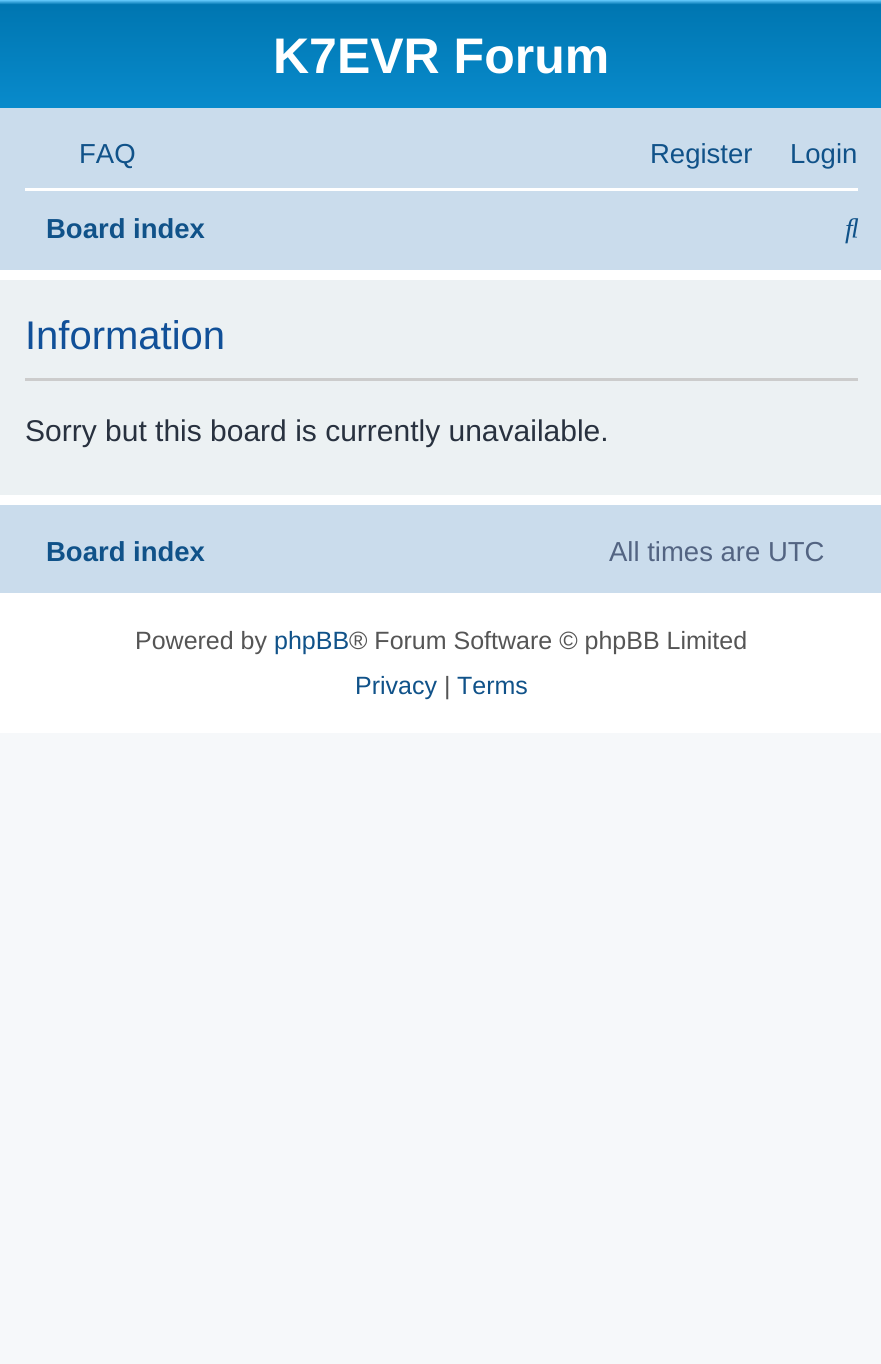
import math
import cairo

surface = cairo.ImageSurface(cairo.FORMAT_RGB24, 881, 1364)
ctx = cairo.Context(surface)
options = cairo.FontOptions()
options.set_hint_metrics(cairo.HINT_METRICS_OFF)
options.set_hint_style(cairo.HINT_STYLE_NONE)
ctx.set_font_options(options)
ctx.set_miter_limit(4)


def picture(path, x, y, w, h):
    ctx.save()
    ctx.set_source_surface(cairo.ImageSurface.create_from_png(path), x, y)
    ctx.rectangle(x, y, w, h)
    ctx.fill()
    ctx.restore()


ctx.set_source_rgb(0.961, 0.969, 0.98)
ctx.paint()
ctx.set_source_rgb(1, 1, 1)
ctx.rectangle(0, 270, 881, 463)
ctx.fill()
gradient = cairo.LinearGradient(441, 0, 441, 230)
gradient.add_color_stop_rgba(0, 0.416, 0.808, 1, 1)
gradient.add_color_stop_rgba(0.02, 0, 0.463, 0.694, 1)
gradient.add_color_stop_rgba(1, 0.071, 0.639, 0.922, 1)
ctx.set_source(gradient)
ctx.rectangle(0, 0, 881, 108)
ctx.fill()
ctx.select_font_face("Liberation Sans", cairo.FONT_SLANT_NORMAL, cairo.FONT_WEIGHT_BOLD)
ctx.set_font_size(50)
ctx.set_source_rgb(1, 1, 1)
ctx.move_to(273, 73)
ctx.show_text("K7EVR Forum")
ctx.set_source_rgb(0.792, 0.863, 0.922)
ctx.rectangle(0, 108, 881, 162)
ctx.fill()
ctx.select_font_face("Liberation Sans")
ctx.set_font_size(27.5)
ctx.set_source_rgb(0.063, 0.322, 0.537)
ctx.move_to(79, 163)
ctx.show_text("FAQ")
ctx.move_to(650, 163)
ctx.show_text("Register")
ctx.move_to(790, 163)
ctx.show_text("Login")
ctx.set_source_rgb(1, 1, 1)
ctx.rectangle(25, 188, 833, 3)
ctx.fill()
ctx.select_font_face("Liberation Sans", cairo.FONT_SLANT_NORMAL, cairo.FONT_WEIGHT_BOLD)
ctx.set_source_rgb(0.063, 0.322, 0.537)
ctx.move_to(46, 238)
ctx.show_text("Board index")
picture("img1.png", 845, 218, 14, 26)
ctx.set_source_rgb(0.925, 0.945, 0.953)
ctx.rectangle(0, 280, 881, 215)
ctx.fill()
ctx.set_source_rgb(0.8, 0.8, 0.8)
ctx.rectangle(25, 378, 833, 3)
ctx.fill()
ctx.select_font_face("Liberation Sans")
ctx.set_font_size(40)
ctx.set_source_rgb(0.067, 0.314, 0.596)
ctx.move_to(25, 349)
ctx.show_text("Information")
ctx.set_font_size(30)
ctx.set_source_rgb(0.157, 0.192, 0.247)
ctx.move_to(25, 441)
ctx.show_text("Sorry but this board is currently unavailable.")
ctx.set_source_rgb(0.792, 0.863, 0.922)
ctx.rectangle(0, 505, 881, 88)
ctx.fill()
ctx.select_font_face("Liberation Sans", cairo.FONT_SLANT_NORMAL, cairo.FONT_WEIGHT_BOLD)
ctx.set_font_size(27.5)
ctx.set_source_rgb(0.063, 0.322, 0.537)
ctx.move_to(46, 561)
ctx.show_text("Board index")
ctx.select_font_face("Liberation Sans")
ctx.set_source_rgb(0.325, 0.392, 0.51)
ctx.move_to(609, 561)
ctx.show_text("All times are UTC")
ctx.set_font_size(25)
ctx.set_source_rgb(0.333, 0.333, 0.333)
ctx.move_to(135, 649)
ctx.show_text("Powered by")
ctx.set_source_rgb(0.063, 0.322, 0.537)
ctx.move_to(274, 649)
ctx.show_text("phpBB")
ctx.set_source_rgb(0.333, 0.333, 0.333)
ctx.move_to(349, 649)
ctx.show_text("® Forum Software © phpBB Limited")
ctx.set_source_rgb(0.063, 0.322, 0.537)
ctx.move_to(355, 694)
ctx.show_text("Privacy")
ctx.set_source_rgb(0.333, 0.333, 0.333)
ctx.move_to(444, 694)
ctx.show_text("|")
ctx.set_source_rgb(0.063, 0.322, 0.537)
ctx.move_to(457, 694)
ctx.show_text("Terms")
surface.write_to_png("page.png")
